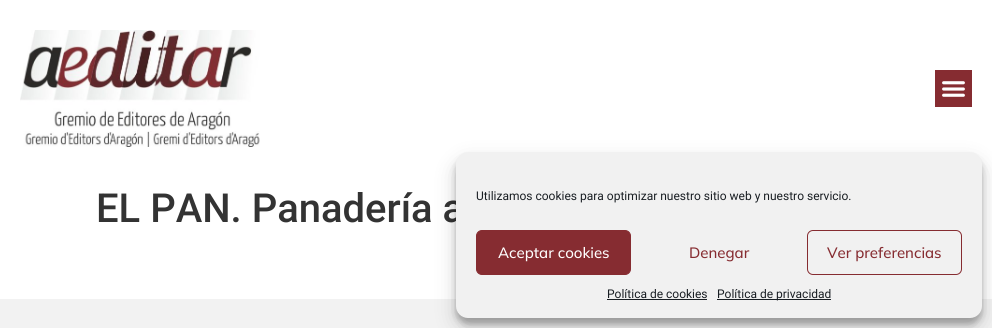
import math
import cairo

surface = cairo.ImageSurface(cairo.FORMAT_RGB24, 992, 328)
ctx = cairo.Context(surface)
options = cairo.FontOptions()
options.set_hint_metrics(cairo.HINT_METRICS_OFF)
options.set_hint_style(cairo.HINT_STYLE_NONE)
ctx.set_font_options(options)
ctx.set_miter_limit(4)


def round_rect(x, y, w, h, r):
    ctx.new_sub_path()
    for i, (u, v) in enumerate([(x + w - r, y + h - r), (x + r, y + h - r), (x + r, y + r), (x + w - r, y + r)]):
        ctx.arc(u, v, r, i * math.pi / 2, (i + 1) * math.pi / 2)
    ctx.close_path()


def shadow(x, y, w, h, r, blur, alpha):
    ctx.push_group_with_content(cairo.CONTENT_ALPHA)
    ctx.set_operator(cairo.OPERATOR_SOURCE)
    for i in range(15, -16, -2):
        e = blur * i / 6
        if min(w, h) + 2 * e > 0:
            ctx.set_source_rgba(0, 0, 0, alpha * math.erfc((i - 1) / 8.5) / 2)
            round_rect(x - e, y - e, w + 2 * e, h + 2 * e, max(0, min(r + e + blur * .6, min(w, h) / 2 + e)))
            ctx.fill()
    ctx.mask(ctx.pop_group())


def picture(path, x, y, w, h):
    ctx.save()
    ctx.set_source_surface(cairo.ImageSurface.create_from_png(path), x, y)
    ctx.rectangle(x, y, w, h)
    ctx.fill()
    ctx.restore()


ctx.set_source_rgb(1, 1, 1)
ctx.paint()
picture("img1.png", 20, 30, 240, 117)
ctx.set_source_rgb(0.525, 0.173, 0.192)
ctx.rectangle(935, 70, 37, 37)
ctx.fill()
picture("img2.png", 942, 81, 23, 16)
ctx.select_font_face("Roboto Medium")
ctx.set_font_size(40)
ctx.set_source_rgb(0.2, 0.2, 0.2)
ctx.move_to(96, 222)
ctx.show_text("EL PAN. Panadería a")
ctx.set_source_rgb(0.949, 0.949, 0.949)
ctx.rectangle(0, 299, 992, 29)
ctx.fill()
ctx.set_source_rgb(0, 0, 0)
shadow(456, 158, 526, 166, 12, 3, 0.23)
shadow(456, 162, 526, 166, 12, 10, 0.19)
ctx.set_source_rgb(0.945, 0.945, 0.945)
round_rect(456, 152, 526, 166, 12)
ctx.fill()
ctx.select_font_face("Roboto")
ctx.set_font_size(12)
ctx.set_source_rgb(0.098, 0.118, 0.137)
ctx.move_to(476, 200)
ctx.show_text("Utilizamos cookies para optimizar nuestro sitio web y nuestro servicio.")
ctx.set_source_rgb(0.525, 0.173, 0.192)
round_rect(476.5, 230.5, 154, 44, 5.5)
ctx.fill_preserve()
ctx.set_line_width(1)
ctx.stroke()
ctx.select_font_face("Mulish Medium")
ctx.set_font_size(15)
ctx.set_source_rgb(1, 1, 1)
ctx.move_to(498, 258)
ctx.show_text("Aceptar cookies")
ctx.set_source_rgb(0.525, 0.173, 0.192)
ctx.move_to(689, 258)
ctx.show_text("Denegar")
round_rect(807.5, 230.5, 154, 44, 5.5)
ctx.stroke()
ctx.move_to(827, 258)
ctx.show_text("Ver preferencias")
ctx.select_font_face("Roboto")
ctx.set_font_size(12)
ctx.set_source_rgb(0.098, 0.118, 0.137)
ctx.move_to(607, 298)
ctx.show_text("Política de cookies")
ctx.rectangle(607, 299, 100, 1)
ctx.fill()
ctx.rectangle(717, 299, 114, 1)
ctx.fill()
ctx.move_to(717, 298)
ctx.show_text("Política de privacidad")
surface.write_to_png("page.png")
